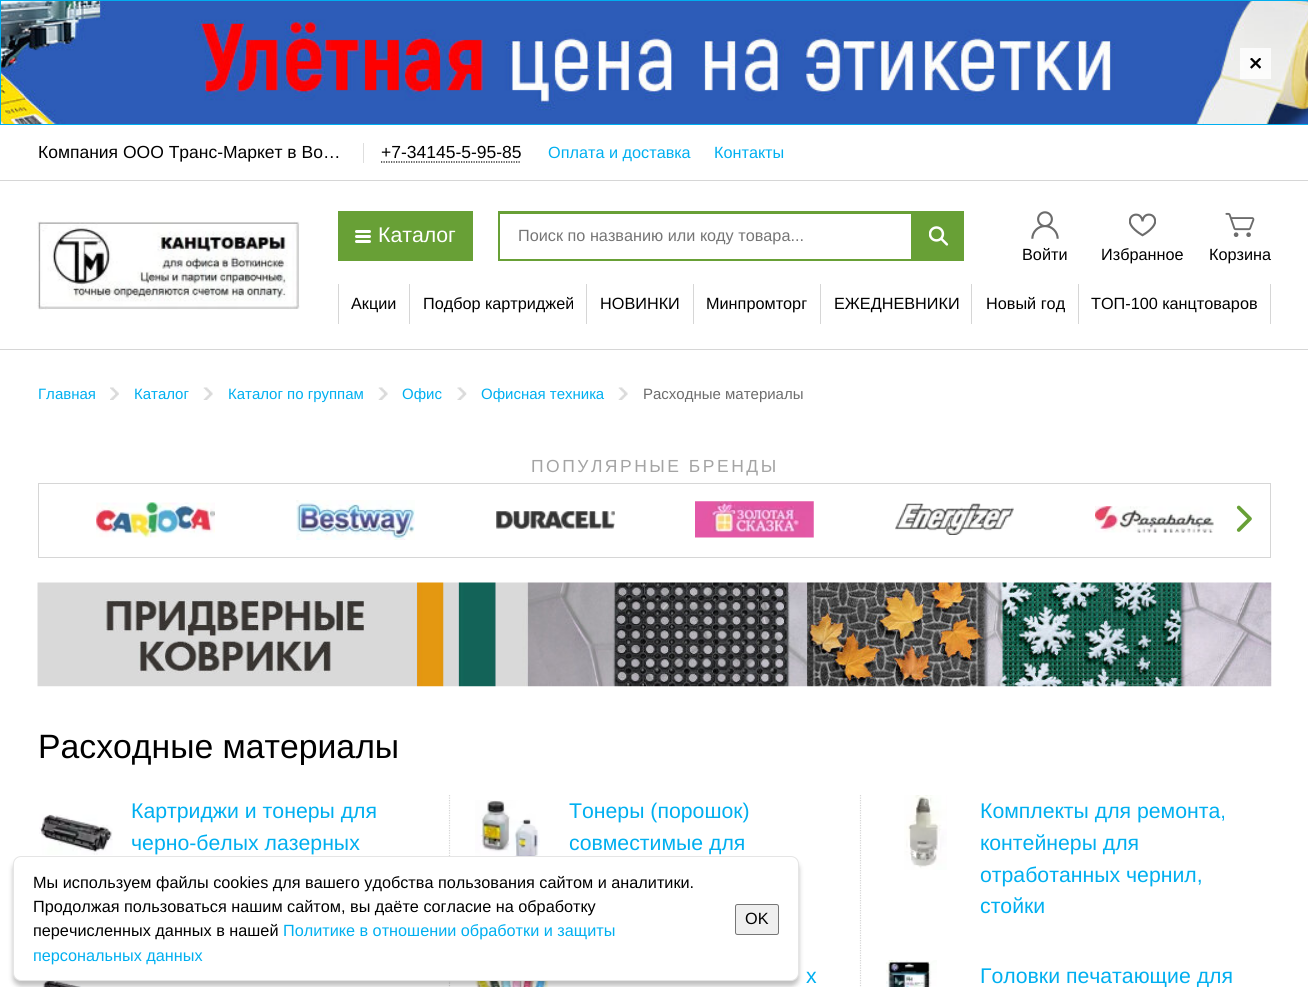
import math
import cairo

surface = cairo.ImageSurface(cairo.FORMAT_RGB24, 1308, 987)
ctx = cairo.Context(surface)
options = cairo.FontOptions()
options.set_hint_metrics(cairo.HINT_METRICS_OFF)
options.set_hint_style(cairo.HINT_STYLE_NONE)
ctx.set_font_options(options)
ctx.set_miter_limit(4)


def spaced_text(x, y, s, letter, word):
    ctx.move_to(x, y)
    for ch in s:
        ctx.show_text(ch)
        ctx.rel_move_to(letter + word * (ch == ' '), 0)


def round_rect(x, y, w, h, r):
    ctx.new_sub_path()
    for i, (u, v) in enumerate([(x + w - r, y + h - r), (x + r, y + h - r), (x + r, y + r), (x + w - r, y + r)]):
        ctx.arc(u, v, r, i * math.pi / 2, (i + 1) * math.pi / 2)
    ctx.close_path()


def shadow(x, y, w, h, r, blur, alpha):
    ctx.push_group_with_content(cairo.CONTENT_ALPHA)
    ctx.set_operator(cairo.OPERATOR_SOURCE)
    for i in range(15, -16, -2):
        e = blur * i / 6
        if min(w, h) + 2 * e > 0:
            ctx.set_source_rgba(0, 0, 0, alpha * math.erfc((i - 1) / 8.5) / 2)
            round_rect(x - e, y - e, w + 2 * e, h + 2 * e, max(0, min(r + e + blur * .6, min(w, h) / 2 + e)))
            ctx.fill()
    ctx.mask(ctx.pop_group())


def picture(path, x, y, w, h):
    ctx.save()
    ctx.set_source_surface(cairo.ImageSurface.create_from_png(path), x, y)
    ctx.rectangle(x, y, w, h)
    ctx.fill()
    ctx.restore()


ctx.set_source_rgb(1, 1, 1)
ctx.paint()
picture("img1.png", 1, 1, 1307, 123)
ctx.rectangle(0.5, 0.5, 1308, 124)
ctx.set_source_rgb(0, 0.686, 0.941)
ctx.set_line_width(1)
ctx.stroke()
ctx.set_source_rgba(1, 1, 1, 0.8)
ctx.rectangle(1240, 48, 31, 31)
ctx.fill()
picture("img2.png", 1250, 58, 11, 11)
ctx.set_source_rgb(0.839, 0.839, 0.839)
ctx.rectangle(0, 180, 1308, 1)
ctx.fill()
ctx.select_font_face("Liberation Sans")
ctx.set_font_size(17.5)
ctx.set_source_rgb(0, 0, 0)
ctx.move_to(38, 158)
ctx.show_text("Компания ООО Транс-Маркет в Во…")
ctx.set_source_rgb(0.871, 0.871, 0.871)
ctx.rectangle(363, 143, 1, 20)
ctx.fill()
ctx.set_source_rgb(0, 0, 0)
ctx.move_to(381, 158)
ctx.show_text("+7-34145-5-95-85")
ctx.new_path()
ctx.move_to(381, 162)
ctx.line_to(521, 162)
ctx.set_line_width(1.2)
ctx.set_dash([1.25, 1.25])
ctx.stroke()
ctx.set_font_size(16.25)
ctx.set_source_rgb(0, 0.686, 0.941)
ctx.move_to(548, 158)
ctx.show_text("Оплата и доставка")
ctx.move_to(714, 158)
ctx.show_text("Контакты")
ctx.set_source_rgb(0.839, 0.839, 0.839)
ctx.rectangle(0, 349, 1308, 1)
ctx.fill()
picture("img3.png", 37, 221, 263, 89)
ctx.set_source_rgb(0.408, 0.627, 0.212)
ctx.rectangle(338, 211, 135, 50)
ctx.fill()
ctx.set_source_rgb(1, 1, 1)
round_rect(355, 235, 16, 3, 1.5)
ctx.fill()
round_rect(355, 230, 16, 3, 1.5)
ctx.fill()
round_rect(355, 240, 16, 3, 1.5)
ctx.fill()
ctx.set_font_size(21.25)
ctx.move_to(378, 242)
ctx.show_text("Каталог")
ctx.rectangle(499.5, 212.5, 463, 47)
ctx.set_source_rgb(0.408, 0.627, 0.212)
ctx.set_line_width(3)
ctx.set_dash([])
ctx.stroke()
ctx.set_source_rgb(1, 1, 1)
ctx.rectangle(500, 214, 411, 45)
ctx.fill()
ctx.set_font_size(16.25)
ctx.set_source_rgb(0.459, 0.459, 0.459)
ctx.move_to(518, 241)
ctx.show_text("Поиск по названию или коду товара...")
ctx.set_source_rgb(0.408, 0.627, 0.212)
ctx.rectangle(911, 214, 50, 44)
ctx.fill()
picture("img4.png", 929, 226, 20, 20)
picture("img5.png", 1031, 211, 28, 28)
ctx.set_source_rgb(0, 0, 0)
ctx.move_to(1022, 260)
ctx.show_text("Войти")
picture("img6.png", 1129, 213, 27, 24)
ctx.move_to(1101, 260)
ctx.show_text("Избранное")
picture("img7.png", 1225, 212, 30, 25)
ctx.move_to(1209, 260)
ctx.show_text("Корзина")
ctx.set_source_rgb(0.839, 0.839, 0.839)
ctx.rectangle(409, 284, 1, 40)
ctx.fill()
ctx.rectangle(338, 284, 1, 40)
ctx.fill()
ctx.set_source_rgb(0, 0, 0)
ctx.move_to(351, 309)
ctx.show_text("Акции")
ctx.set_source_rgb(0.839, 0.839, 0.839)
ctx.rectangle(586, 284, 1, 40)
ctx.fill()
ctx.set_source_rgb(0, 0, 0)
ctx.move_to(423, 309)
ctx.show_text("Подбор картриджей")
ctx.set_source_rgb(0.839, 0.839, 0.839)
ctx.rectangle(693, 284, 1, 40)
ctx.fill()
ctx.set_source_rgb(0, 0, 0)
ctx.move_to(600, 309)
ctx.show_text("НОВИНКИ")
ctx.set_source_rgb(0.839, 0.839, 0.839)
ctx.rectangle(820, 284, 1, 40)
ctx.fill()
ctx.set_source_rgb(0, 0, 0)
ctx.move_to(706, 309)
ctx.show_text("Минпромторг")
ctx.set_source_rgb(0.839, 0.839, 0.839)
ctx.rectangle(971, 284, 1, 40)
ctx.fill()
ctx.set_source_rgb(0, 0, 0)
ctx.move_to(834, 309)
ctx.show_text("ЕЖЕДНЕВНИКИ")
ctx.set_source_rgb(0.839, 0.839, 0.839)
ctx.rectangle(1078, 284, 1, 40)
ctx.fill()
ctx.set_source_rgb(0, 0, 0)
ctx.move_to(986, 309)
ctx.show_text("Новый год")
ctx.set_source_rgb(0.839, 0.839, 0.839)
ctx.rectangle(1270, 284, 1, 40)
ctx.fill()
ctx.set_source_rgb(0, 0, 0)
ctx.move_to(1091, 309)
ctx.show_text("ТОП-100 канцтоваров")
ctx.set_font_size(15)
ctx.set_source_rgb(0, 0.686, 0.941)
ctx.move_to(38, 399)
ctx.show_text("Главная")
picture("img8.png", 110, 387, 9, 13)
ctx.move_to(134, 399)
ctx.show_text("Каталог")
picture("img9.png", 203, 387, 10, 13)
ctx.move_to(228, 399)
ctx.show_text("Каталог по группам")
picture("img10.png", 378, 387, 10, 13)
ctx.move_to(402, 399)
ctx.show_text("Офис")
picture("img11.png", 457, 387, 10, 13)
ctx.move_to(481, 399)
ctx.show_text("Офисная техника")
picture("img9.png", 618, 387, 10, 13)
ctx.set_source_rgb(0.424, 0.424, 0.424)
ctx.move_to(643, 399)
ctx.show_text("Расходные материалы")
ctx.set_font_size(17.5)
ctx.set_source_rgb(0.643, 0.643, 0.643)
spaced_text(531, 472, "ПОПУЛЯРНЫЕ БРЕНДЫ", 2.5, 0)
ctx.rectangle(38.5, 483.5, 1232, 74)
ctx.set_source_rgb(0.839, 0.839, 0.839)
ctx.set_line_width(1)
ctx.stroke()
picture("img12.png", 96, 502, 119, 36)
picture("img13.png", 296, 500, 119, 40)
picture("img14.png", 496, 511, 119, 18)
picture("img15.png", 695, 501, 119, 37)
picture("img16.png", 895, 503, 119, 32)
picture("img17.png", 1095, 506, 119, 27)
picture("img18.png", 1236, 505, 16, 27)
picture("img19.png", 37, 582, 1235, 105)
ctx.set_font_size(33.75)
ctx.set_source_rgb(0, 0, 0)
ctx.move_to(38, 758)
ctx.show_text("Расходные материалы")
picture("img20.png", 39, 814, 74, 41)
ctx.set_font_size(21.25)
ctx.set_source_rgb(0, 0.686, 0.941)
ctx.move_to(131, 818)
ctx.show_text("Картриджи и тонеры для")
ctx.move_to(131, 850)
ctx.show_text("черно-белых лазерных")
picture("img21.png", 42, 981, 39, 6)
ctx.new_path()
ctx.move_to(449.5, 795)
ctx.line_to(449.5, 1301)
ctx.set_source_rgb(0.839, 0.839, 0.839)
ctx.set_line_width(1.2)
ctx.set_dash([1.25, 1.25])
ctx.stroke()
picture("img22.png", 475, 800, 65, 56)
ctx.set_source_rgb(0, 0.686, 0.941)
ctx.move_to(569, 818)
ctx.show_text("Тонеры (порошок)")
ctx.move_to(569, 850)
ctx.show_text("совместимые для")
ctx.move_to(806, 983)
ctx.show_text("х")
picture("img23.png", 475, 981, 75, 6)
ctx.new_path()
ctx.move_to(860.5, 795)
ctx.line_to(860.5, 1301)
ctx.set_source_rgb(0.839, 0.839, 0.839)
ctx.stroke()
picture("img24.png", 904, 795, 43, 75)
ctx.set_source_rgb(0, 0.686, 0.941)
ctx.move_to(980, 818)
ctx.show_text("Комплекты для ремонта,")
ctx.move_to(980, 850)
ctx.show_text("контейнеры для")
ctx.move_to(980, 882)
ctx.show_text("отработанных чернил,")
ctx.move_to(980, 913)
ctx.show_text("стойки")
picture("img25.png", 886, 960, 51, 27)
ctx.move_to(980, 983)
ctx.show_text("Головки печатающие для")
ctx.set_source_rgb(0, 0, 0)
shadow(13, 861, 786, 125, 8, 2.5, 0.25)
ctx.set_source_rgb(1, 1, 1)
round_rect(13.5, 856.5, 785, 124, 7.5)
ctx.fill_preserve()
ctx.set_source_rgb(0.898, 0.898, 0.898)
ctx.set_line_width(1)
ctx.set_dash([])
ctx.stroke()
ctx.set_font_size(16.25)
ctx.set_source_rgb(0, 0, 0)
ctx.move_to(33, 888)
ctx.show_text("Мы используем файлы cookies для вашего удобства пользования сайтом и аналитики.")
ctx.move_to(33, 912)
ctx.show_text("Продолжая пользоваться нашим сайтом, вы даёте согласие на обработку")
ctx.move_to(33, 936)
ctx.show_text("перечисленных данных в нашей")
ctx.set_source_rgb(0, 0.686, 0.941)
ctx.move_to(283, 936)
ctx.show_text("Политике в отношении обработки и защиты")
ctx.move_to(33, 961)
ctx.show_text("персональных данных")
ctx.set_source_rgb(0.937, 0.937, 0.937)
round_rect(735.5, 904.5, 43, 30, 2)
ctx.fill_preserve()
ctx.set_source_rgb(0.463, 0.463, 0.463)
ctx.stroke()
ctx.set_source_rgb(0, 0, 0)
ctx.move_to(745, 924)
ctx.show_text("OK")
surface.write_to_png("page.png")
